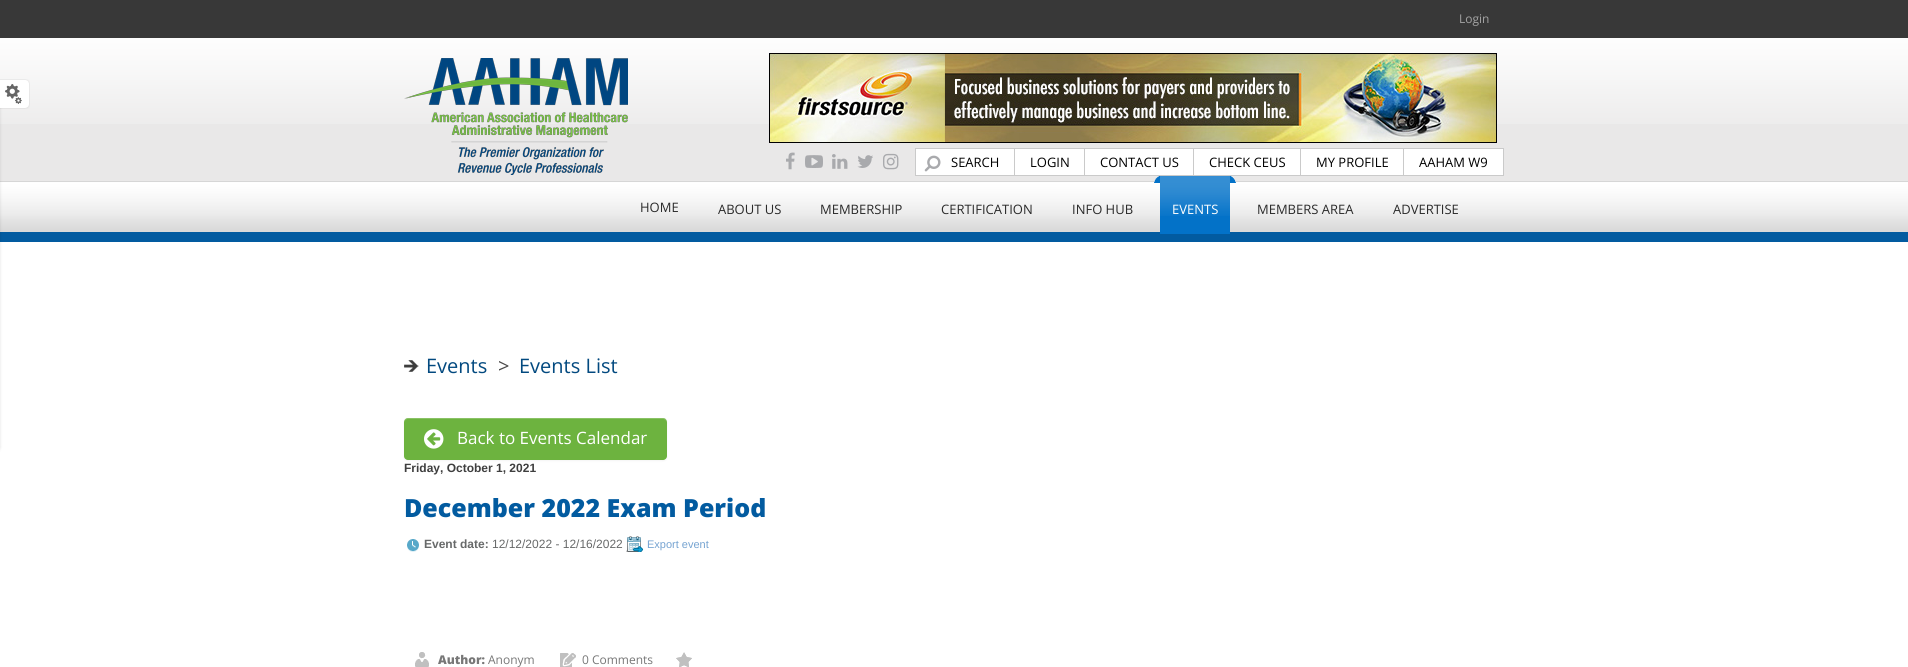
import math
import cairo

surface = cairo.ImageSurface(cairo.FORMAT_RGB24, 1908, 667)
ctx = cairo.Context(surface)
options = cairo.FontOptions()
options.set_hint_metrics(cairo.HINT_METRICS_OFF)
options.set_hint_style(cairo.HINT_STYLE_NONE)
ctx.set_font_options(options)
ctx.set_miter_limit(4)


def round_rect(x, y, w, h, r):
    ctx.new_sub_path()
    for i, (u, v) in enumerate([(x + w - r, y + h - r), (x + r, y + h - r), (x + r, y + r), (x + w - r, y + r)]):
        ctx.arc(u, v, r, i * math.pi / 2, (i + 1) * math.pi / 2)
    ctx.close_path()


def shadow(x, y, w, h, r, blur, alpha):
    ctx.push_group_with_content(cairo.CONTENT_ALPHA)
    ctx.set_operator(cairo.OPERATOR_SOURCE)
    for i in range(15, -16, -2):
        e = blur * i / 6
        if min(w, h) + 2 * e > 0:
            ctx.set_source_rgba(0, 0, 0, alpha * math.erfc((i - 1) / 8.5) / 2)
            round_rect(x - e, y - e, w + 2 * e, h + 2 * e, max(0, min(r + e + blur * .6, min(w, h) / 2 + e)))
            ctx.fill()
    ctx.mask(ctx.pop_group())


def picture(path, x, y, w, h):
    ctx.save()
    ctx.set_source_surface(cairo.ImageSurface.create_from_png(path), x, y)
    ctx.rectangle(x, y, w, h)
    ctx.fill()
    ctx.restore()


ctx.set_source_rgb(0.22, 0.22, 0.22)
ctx.paint()
ctx.select_font_face("Open Sans")
ctx.set_font_size(12)
ctx.set_source_rgb(0.639, 0.639, 0.639)
ctx.move_to(1459, 23)
ctx.show_text("Login")
ctx.set_source_rgb(1, 1, 1)
ctx.rectangle(0, 181, 1908, 486)
ctx.fill()
ctx.set_source_rgb(0.914, 0.91, 0.91)
ctx.rectangle(0, 124, 1908, 57)
ctx.fill()
picture("img3.png", 0, 38, 1908, 86)
picture("img12.png", 0, 181, 1908, 51)
ctx.set_source_rgb(0.008, 0.357, 0.627)
ctx.rectangle(0, 232, 1908, 10)
ctx.fill()
ctx.set_source_rgb(0, 0, 0)
shadow(-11, 80, 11, 372, 6, 1.5, 0.12)
picture("img1.png", 0, 79, 30, 30)
picture("img2.png", 5, 84, 17, 20)
picture("img4.png", 404, 58, 224, 117)
picture("img5.png", 769, 53, 728, 90)
picture("img6.png", 786, 152, 9, 18)
picture("img7.png", 805, 155, 18, 13)
picture("img8.png", 832, 154, 16, 15)
picture("img9.png", 857, 155, 16, 13)
picture("img10.png", 883, 153, 16, 17)
ctx.set_source_rgb(1, 1, 1)
ctx.rectangle(1015, 149, 69, 26)
ctx.fill()
ctx.rectangle(1014.5, 148.5, 71, 27)
ctx.set_source_rgb(0.792, 0.792, 0.792)
ctx.set_line_width(1)
ctx.stroke()
ctx.set_source_rgb(1, 1, 1)
ctx.rectangle(915.5, 148.5, 99, 27)
ctx.fill_preserve()
ctx.set_source_rgb(0.792, 0.792, 0.792)
ctx.stroke()
picture("img11.png", 924, 155, 17, 17)
ctx.set_font_size(13)
ctx.set_source_rgb(0, 0, 0)
ctx.move_to(951, 167)
ctx.show_text("SEARCH")
ctx.move_to(1030, 167)
ctx.show_text("LOGIN")
ctx.set_source_rgb(1, 1, 1)
ctx.rectangle(1085, 149, 108, 26)
ctx.fill()
ctx.rectangle(1084.5, 148.5, 110, 27)
ctx.set_source_rgb(0.792, 0.792, 0.792)
ctx.stroke()
ctx.set_source_rgb(0, 0, 0)
ctx.move_to(1100, 167)
ctx.show_text("CONTACT US")
ctx.set_source_rgb(1, 1, 1)
ctx.rectangle(1194, 149, 106, 26)
ctx.fill()
ctx.rectangle(1193.5, 148.5, 108, 27)
ctx.set_source_rgb(0.792, 0.792, 0.792)
ctx.stroke()
ctx.set_source_rgb(0, 0, 0)
ctx.move_to(1209, 167)
ctx.show_text("CHECK CEUS")
ctx.set_source_rgb(1, 1, 1)
ctx.rectangle(1301, 149, 102, 26)
ctx.fill()
ctx.rectangle(1300.5, 148.5, 104, 27)
ctx.set_source_rgb(0.792, 0.792, 0.792)
ctx.stroke()
ctx.set_source_rgb(0, 0, 0)
ctx.move_to(1316, 167)
ctx.show_text("MY PROFILE")
ctx.set_source_rgb(1, 1, 1)
ctx.rectangle(1403.5, 148.5, 100, 27)
ctx.fill_preserve()
ctx.set_source_rgb(0.792, 0.792, 0.792)
ctx.stroke()
ctx.set_source_rgb(0, 0, 0)
ctx.move_to(1419, 167)
ctx.show_text("AAHAM W9")
ctx.set_source_rgb(0.165, 0.165, 0.165)
ctx.move_to(640, 212)
ctx.show_text("HOME")
ctx.move_to(718, 214)
ctx.show_text("ABOUT US")
ctx.move_to(820, 214)
ctx.show_text("MEMBERSHIP")
ctx.move_to(941, 214)
ctx.show_text("CERTIFICATION")
ctx.move_to(1072, 214)
ctx.show_text("INFO HUB")
ctx.set_source_rgb(0.012, 0.447, 0.784)
ctx.rectangle(1154, 176, 6, 7)
ctx.fill()
picture("img13.png", 1154, 176, 5, 7)
ctx.rectangle(1230, 176, 6, 7)
ctx.fill()
picture("img14.png", 1231, 176, 5, 7)
ctx.rectangle(1160, 176, 70, 58)
ctx.fill()
picture("img15.png", 1160, 176, 70, 40)
ctx.set_source_rgb(1, 1, 1)
ctx.move_to(1172, 214)
ctx.show_text("EVENTS")
ctx.set_source_rgb(0.165, 0.165, 0.165)
ctx.move_to(1257, 214)
ctx.show_text("MEMBERS AREA")
ctx.move_to(1393, 214)
ctx.show_text("ADVERTISE")
picture("img16.png", 404, 360, 15, 12)
ctx.set_font_size(20)
ctx.set_source_rgb(0.008, 0.286, 0.498)
ctx.move_to(426, 373)
ctx.show_text("Events")
ctx.set_source_rgb(0.294, 0.29, 0.29)
ctx.move_to(498, 373)
ctx.show_text(">")
ctx.set_source_rgb(0.008, 0.286, 0.498)
ctx.move_to(519, 373)
ctx.show_text("Events List")
ctx.set_source_rgb(0, 0, 0)
shadow(404, 419, 263, 42, 4, 1, 0.05)
ctx.set_source_rgb(0.427, 0.702, 0.247)
round_rect(404, 418, 263, 42, 4)
ctx.fill()
ctx.set_source_rgba(1, 1, 1, 0.2)
ctx.new_path()
ctx.move_to(408, 419)
ctx.line_to(663, 419)
ctx.curve_to(665, 419, 667, 421, 667, 423)
ctx.line_to(667, 422)
ctx.curve_to(667, 420, 665, 418, 663, 418)
ctx.line_to(408, 418)
ctx.curve_to(406, 418, 404, 420, 404, 422)
ctx.line_to(404, 423)
ctx.curve_to(404, 421, 406, 419, 408, 419)
ctx.close_path()
ctx.fill()
picture("img17.png", 424, 429, 20, 20)
ctx.set_font_size(17)
ctx.set_source_rgb(1, 1, 1)
ctx.move_to(457, 444)
ctx.show_text("Back to Events Calendar")
ctx.select_font_face("Liberation Sans", cairo.FONT_SLANT_NORMAL, cairo.FONT_WEIGHT_BOLD)
ctx.set_font_size(12)
ctx.set_source_rgb(0.247, 0.247, 0.247)
ctx.move_to(404, 472)
ctx.show_text("Friday, October 1, 2021")
ctx.select_font_face("Open Sans ExtraBold")
ctx.set_font_size(25)
ctx.set_source_rgb(0.008, 0.357, 0.627)
ctx.move_to(404, 517)
ctx.show_text("December 2022 Exam Period")
picture("img18.png", 407, 539, 12, 13)
ctx.select_font_face("Liberation Sans", cairo.FONT_SLANT_NORMAL, cairo.FONT_WEIGHT_BOLD)
ctx.set_font_size(12)
ctx.set_source_rgb(0.404, 0.412, 0.412)
ctx.move_to(424, 548)
ctx.show_text("Event date:")
ctx.select_font_face("Liberation Sans")
ctx.move_to(492, 548)
ctx.show_text("12/12/2022 - 12/16/2022")
picture("img19.png", 626, 536, 18, 16)
ctx.set_font_size(11)
ctx.set_source_rgb(0.459, 0.639, 0.82)
ctx.move_to(647, 548)
ctx.show_text("Export event")
picture("img20.png", 415, 652, 14, 15)
ctx.select_font_face("Open Sans ExtraBold")
ctx.set_font_size(12)
ctx.set_source_rgb(0.467, 0.467, 0.467)
ctx.move_to(438, 664)
ctx.show_text("Author:")
ctx.select_font_face("Open Sans")
ctx.move_to(488, 664)
ctx.show_text("Anonym")
picture("img21.png", 560, 653, 16, 14)
ctx.move_to(582, 664)
ctx.show_text("0 Comments")
picture("img22.png", 676, 652, 16, 15)
surface.write_to_png("page.png")
